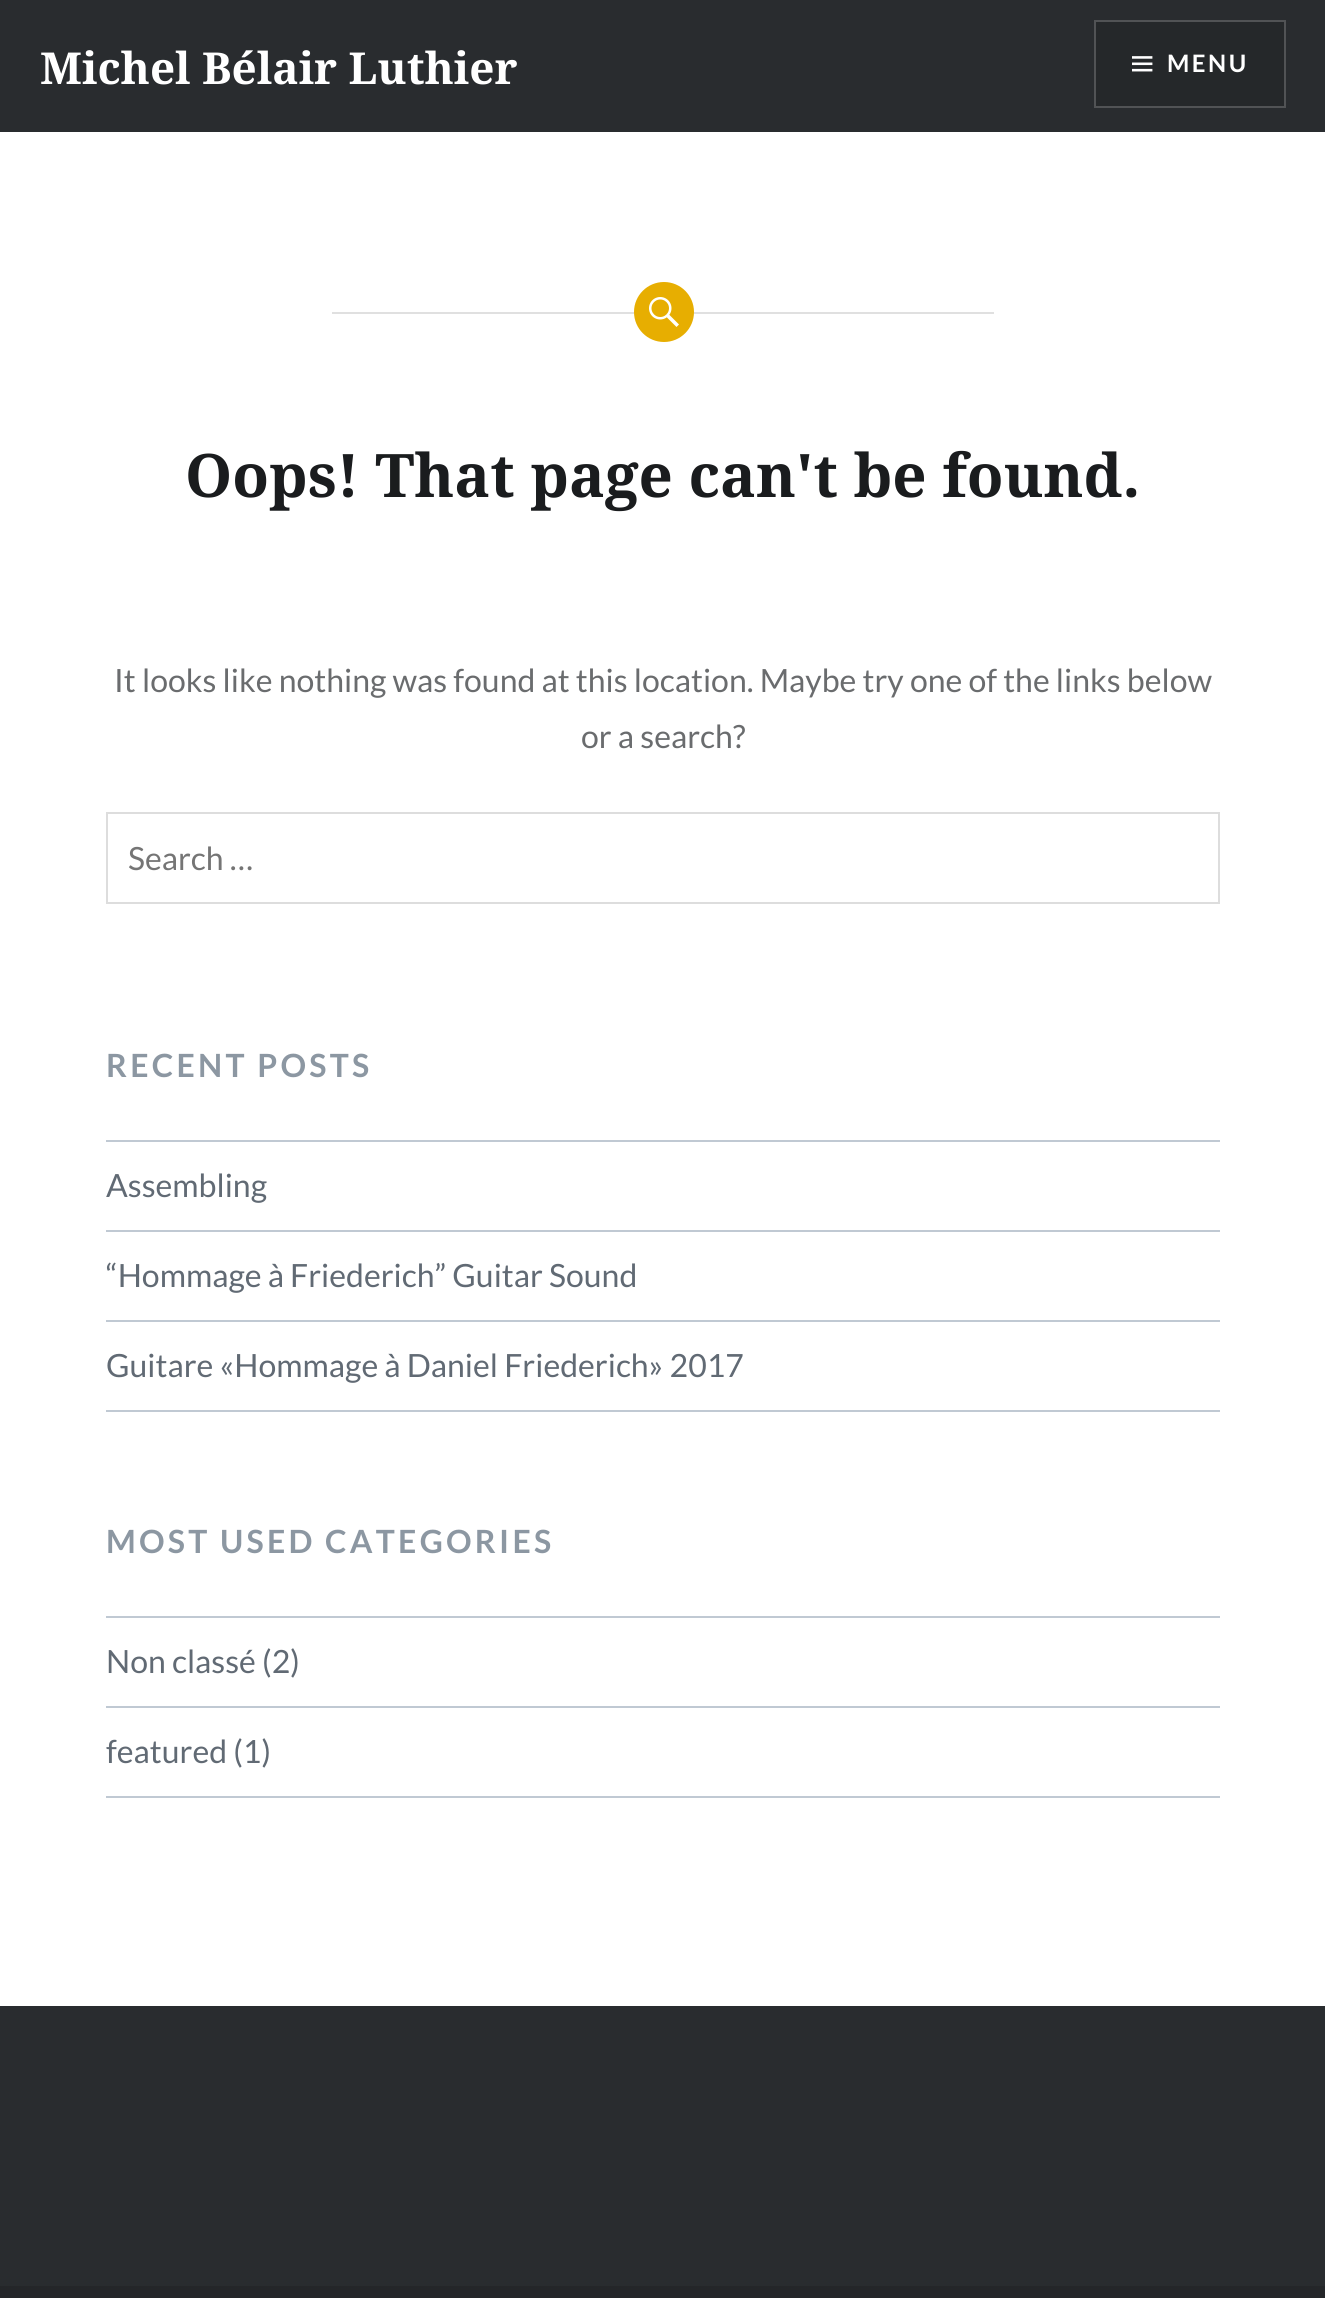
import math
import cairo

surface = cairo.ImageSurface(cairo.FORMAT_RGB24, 1325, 2298)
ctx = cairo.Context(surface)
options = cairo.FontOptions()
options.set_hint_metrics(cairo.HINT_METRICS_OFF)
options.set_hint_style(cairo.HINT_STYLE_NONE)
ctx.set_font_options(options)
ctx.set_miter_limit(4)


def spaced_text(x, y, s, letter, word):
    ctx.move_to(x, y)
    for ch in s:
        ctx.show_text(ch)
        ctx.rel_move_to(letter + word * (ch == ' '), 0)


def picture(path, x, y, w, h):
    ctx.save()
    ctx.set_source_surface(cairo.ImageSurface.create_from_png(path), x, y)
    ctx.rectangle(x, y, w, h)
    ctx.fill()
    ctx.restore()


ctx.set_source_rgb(1, 1, 1)
ctx.paint()
ctx.set_source_rgb(0.161, 0.173, 0.184)
ctx.rectangle(0, 0, 1325, 132)
ctx.fill()
ctx.select_font_face("Noto Serif", cairo.FONT_SLANT_NORMAL, cairo.FONT_WEIGHT_BOLD)
ctx.set_font_size(44)
ctx.set_source_rgb(1, 1, 1)
ctx.move_to(40, 84)
ctx.show_text("Michel Bélair Luthier")
ctx.set_source_rgb(0.145, 0.157, 0.165)
ctx.rectangle(1095, 21, 190, 86)
ctx.fill_preserve()
ctx.set_source_rgb(0.318, 0.325, 0.333)
ctx.stroke()
picture("img1.png", 1132, 56, 21, 16)
ctx.select_font_face("Lato", cairo.FONT_SLANT_NORMAL, cairo.FONT_WEIGHT_BOLD)
ctx.set_font_size(24)
ctx.set_source_rgb(1, 1, 1)
spaced_text(1167, 72, "MENU", 2.5, 0)
ctx.set_source_rgb(0.878, 0.878, 0.878)
ctx.rectangle(332, 312, 662, 2)
ctx.fill()
ctx.set_source_rgb(0.906, 0.682, 0.004)
ctx.arc(664, 312, 30, 0, 2 * math.pi)
ctx.fill()
picture("img2.png", 649, 297, 30, 30)
ctx.select_font_face("Noto Serif", cairo.FONT_SLANT_NORMAL, cairo.FONT_WEIGHT_BOLD)
ctx.set_font_size(60)
ctx.set_source_rgb(0.102, 0.11, 0.118)
ctx.move_to(185, 497)
ctx.show_text("Oops! That page can't be found.")
ctx.select_font_face("Lato")
ctx.set_font_size(32)
ctx.set_source_rgb(0.416, 0.424, 0.431)
ctx.move_to(114, 692)
ctx.show_text("It looks like nothing was found at this location. Maybe try one of the links below")
ctx.move_to(581, 748)
ctx.show_text("or a search?")
ctx.rectangle(107, 813, 1112, 90)
ctx.set_source_rgb(0.867, 0.867, 0.867)
ctx.stroke()
ctx.set_source_rgb(0.459, 0.459, 0.459)
ctx.move_to(128, 870)
ctx.show_text("Search …")
ctx.select_font_face("Lato", cairo.FONT_SLANT_NORMAL, cairo.FONT_WEIGHT_BOLD)
ctx.set_source_rgb(0.549, 0.592, 0.635)
spaced_text(106, 1077, "RECENT POSTS", 3.25, 0)
ctx.set_source_rgb(0.753, 0.788, 0.827)
ctx.rectangle(106, 1140, 1114, 2)
ctx.fill()
ctx.rectangle(106, 1230, 1114, 2)
ctx.fill()
ctx.select_font_face("Lato")
ctx.set_source_rgb(0.38, 0.416, 0.455)
ctx.move_to(106, 1197)
ctx.show_text("Assembling")
ctx.set_source_rgb(0.753, 0.788, 0.827)
ctx.rectangle(106, 1320, 1114, 2)
ctx.fill()
ctx.set_source_rgb(0.38, 0.416, 0.455)
ctx.move_to(106, 1287)
ctx.show_text("“Hommage à Friederich” Guitar Sound")
ctx.set_source_rgb(0.753, 0.788, 0.827)
ctx.rectangle(106, 1410, 1114, 2)
ctx.fill()
ctx.set_source_rgb(0.38, 0.416, 0.455)
ctx.move_to(106, 1377)
ctx.show_text("Guitare «Hommage à Daniel Friederich» 2017")
ctx.select_font_face("Lato", cairo.FONT_SLANT_NORMAL, cairo.FONT_WEIGHT_BOLD)
ctx.set_source_rgb(0.549, 0.592, 0.635)
spaced_text(106, 1553, "MOST USED CATEGORIES", 3.25, 0)
ctx.set_source_rgb(0.753, 0.788, 0.827)
ctx.rectangle(106, 1616, 1114, 2)
ctx.fill()
ctx.rectangle(106, 1706, 1114, 2)
ctx.fill()
ctx.select_font_face("Lato")
ctx.set_source_rgb(0.38, 0.416, 0.455)
ctx.move_to(106, 1673)
ctx.show_text("Non classé (2)")
ctx.set_source_rgb(0.753, 0.788, 0.827)
ctx.rectangle(106, 1796, 1114, 2)
ctx.fill()
ctx.set_source_rgb(0.38, 0.416, 0.455)
ctx.move_to(106, 1763)
ctx.show_text("featured (1)")
ctx.set_source_rgb(0.161, 0.173, 0.184)
ctx.rectangle(0, 2006, 1325, 280)
ctx.fill()
ctx.set_source_rgb(0.141, 0.149, 0.161)
ctx.rectangle(0, 2286, 1325, 12)
ctx.fill()
surface.write_to_png("page.png")
